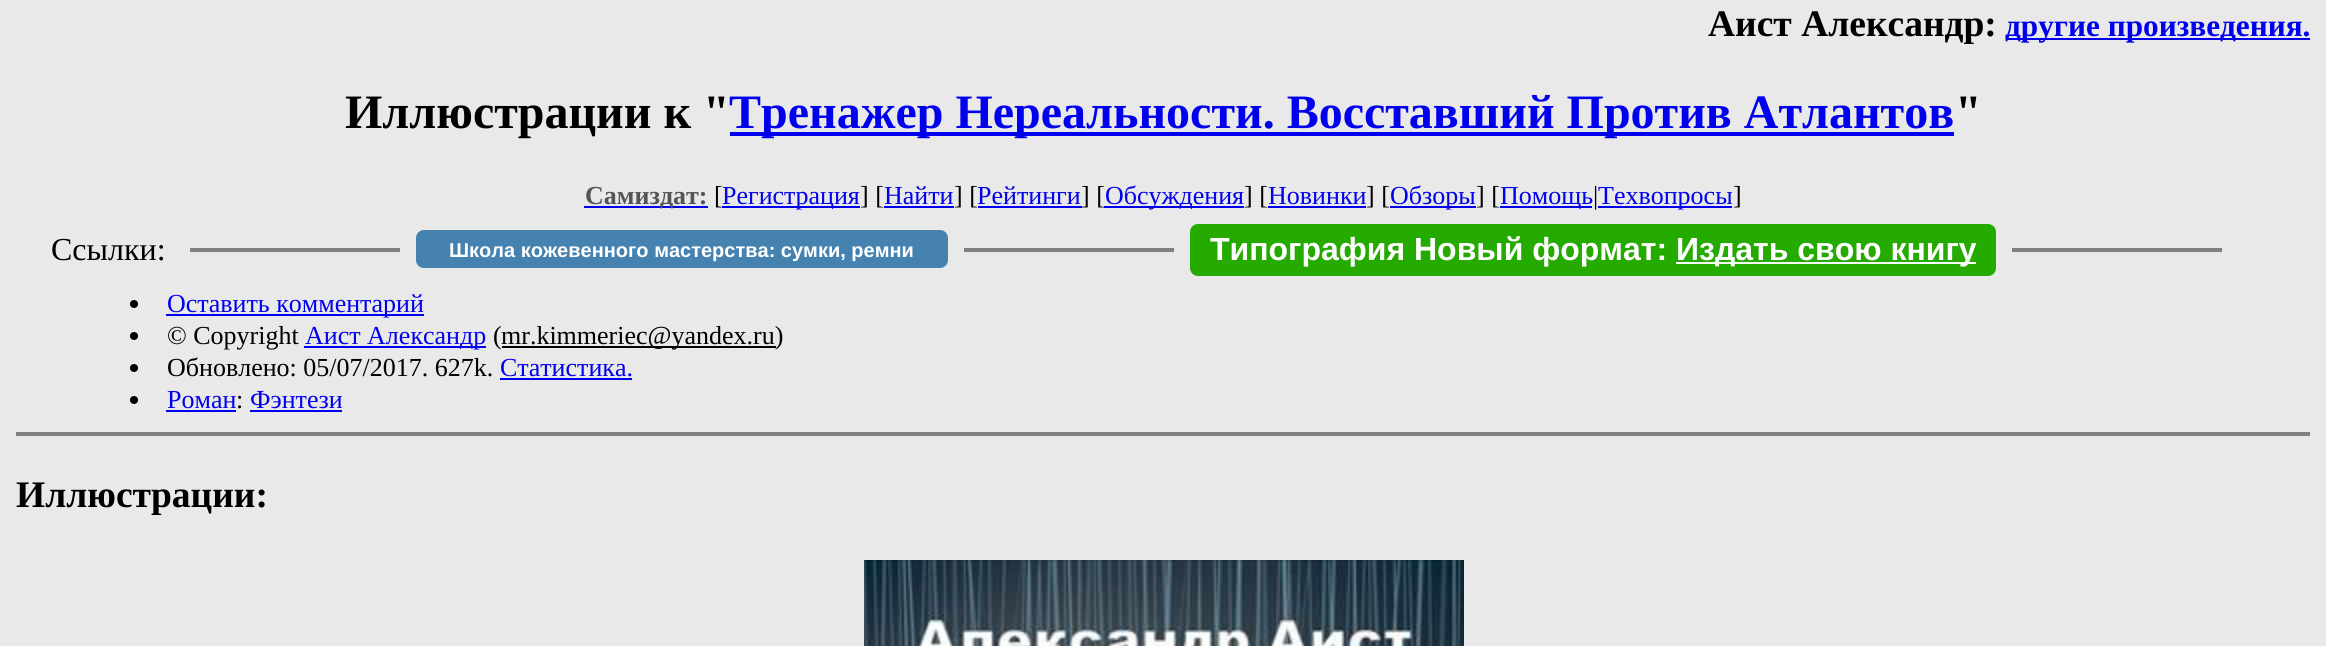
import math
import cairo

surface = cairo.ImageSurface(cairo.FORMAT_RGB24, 2326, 646)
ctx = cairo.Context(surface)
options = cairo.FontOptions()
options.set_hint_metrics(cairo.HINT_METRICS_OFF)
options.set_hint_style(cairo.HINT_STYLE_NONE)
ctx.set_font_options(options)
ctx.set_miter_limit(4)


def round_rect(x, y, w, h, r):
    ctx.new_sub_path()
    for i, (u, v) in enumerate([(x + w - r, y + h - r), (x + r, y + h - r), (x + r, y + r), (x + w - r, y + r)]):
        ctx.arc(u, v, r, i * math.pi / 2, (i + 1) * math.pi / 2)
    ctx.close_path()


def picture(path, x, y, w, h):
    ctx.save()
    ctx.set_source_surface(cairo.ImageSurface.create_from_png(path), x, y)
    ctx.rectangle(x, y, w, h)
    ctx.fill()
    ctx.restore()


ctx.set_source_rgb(0.914, 0.914, 0.914)
ctx.paint()
ctx.select_font_face("Liberation Serif", cairo.FONT_SLANT_NORMAL, cairo.FONT_WEIGHT_BOLD)
ctx.set_font_size(37.5)
ctx.set_source_rgb(0, 0, 0)
ctx.move_to(1708, 36)
ctx.show_text("Аист Александр:")
ctx.set_source_rgb(0, 0, 0.933)
ctx.rectangle(2006, 38, 304, 2)
ctx.fill()
ctx.set_font_size(31.25)
ctx.move_to(2005, 36)
ctx.show_text("другие произведения.")
ctx.set_font_size(48)
ctx.set_source_rgb(0, 0, 0)
ctx.move_to(345, 128)
ctx.show_text("Иллюстрации к \"")
ctx.set_source_rgb(0, 0, 0.933)
ctx.rectangle(730, 132, 1224, 4)
ctx.fill()
ctx.move_to(729, 128)
ctx.show_text("Тренажер Нереальности. Восставший Против Атлантов")
ctx.set_source_rgb(0, 0, 0)
ctx.move_to(1955, 128)
ctx.show_text("\"")
ctx.set_source_rgb(0, 0, 0.933)
ctx.rectangle(584, 206, 124, 2)
ctx.fill()
ctx.set_font_size(26)
ctx.set_source_rgb(0.333, 0.333, 0.333)
ctx.move_to(585, 204)
ctx.show_text("Самиздат:")
ctx.select_font_face("Liberation Serif")
ctx.set_source_rgb(0, 0, 0)
ctx.move_to(714, 204)
ctx.show_text("[")
ctx.set_source_rgb(0, 0, 0.933)
ctx.rectangle(722, 206, 138, 2)
ctx.fill()
ctx.move_to(722, 204)
ctx.show_text("Регистрация")
ctx.set_source_rgb(0, 0, 0)
ctx.move_to(860, 204)
ctx.show_text("] [")
ctx.set_source_rgb(0, 0, 0.933)
ctx.move_to(884, 204)
ctx.show_text("Найти")
ctx.set_source_rgb(0, 0, 0)
ctx.move_to(954, 204)
ctx.show_text("] [")
ctx.set_source_rgb(0, 0, 0.933)
ctx.rectangle(884, 206, 70, 2)
ctx.fill()
ctx.move_to(977, 204)
ctx.show_text("Рейтинги")
ctx.rectangle(978, 206, 104, 2)
ctx.fill()
ctx.set_source_rgb(0, 0, 0)
ctx.move_to(1081, 204)
ctx.show_text("] [")
ctx.set_source_rgb(0, 0, 0.933)
ctx.rectangle(1104, 206, 140, 2)
ctx.fill()
ctx.move_to(1105, 204)
ctx.show_text("Обсуждения")
ctx.set_source_rgb(0, 0, 0)
ctx.move_to(1244, 204)
ctx.show_text("] [")
ctx.set_source_rgb(0, 0, 0.933)
ctx.rectangle(1268, 206, 98, 2)
ctx.fill()
ctx.move_to(1268, 204)
ctx.show_text("Новинки")
ctx.set_source_rgb(0, 0, 0)
ctx.move_to(1366, 204)
ctx.show_text("] [")
ctx.set_source_rgb(0, 0, 0.933)
ctx.rectangle(1390, 206, 86, 2)
ctx.fill()
ctx.move_to(1390, 204)
ctx.show_text("Обзоры")
ctx.set_source_rgb(0, 0, 0)
ctx.move_to(1476, 204)
ctx.show_text("] [")
ctx.set_source_rgb(0, 0, 0.933)
ctx.rectangle(1500, 206, 92, 2)
ctx.fill()
ctx.move_to(1500, 204)
ctx.show_text("Помощь")
ctx.set_source_rgb(0, 0, 0)
ctx.move_to(1593, 204)
ctx.show_text("|")
ctx.set_source_rgb(0, 0, 0.933)
ctx.rectangle(1598, 206, 134, 2)
ctx.fill()
ctx.move_to(1598, 204)
ctx.show_text("Техвопросы")
ctx.set_source_rgb(0, 0, 0)
ctx.move_to(1733, 204)
ctx.show_text("]")
ctx.set_font_size(32)
ctx.move_to(51, 260)
ctx.show_text("Ссылки:")
ctx.set_source_rgb(0.502, 0.502, 0.502)
ctx.rectangle(190, 248, 210, 4)
ctx.fill()
ctx.set_source_rgb(0.271, 0.51, 0.686)
round_rect(416, 230, 532, 38, 8)
ctx.fill()
ctx.select_font_face("Liberation Sans", cairo.FONT_SLANT_NORMAL, cairo.FONT_WEIGHT_BOLD)
ctx.set_font_size(20)
ctx.set_source_rgb(1, 1, 1)
ctx.move_to(449, 257)
ctx.show_text("Школа кожевенного мастерства: сумки, ремни")
ctx.set_source_rgb(0.502, 0.502, 0.502)
ctx.rectangle(964, 248, 210, 4)
ctx.fill()
ctx.set_source_rgb(0.145, 0.667, 0)
round_rect(1190, 224, 806, 52, 8)
ctx.fill()
ctx.set_font_size(32)
ctx.set_source_rgb(1, 1, 1)
ctx.move_to(1210, 260)
ctx.show_text("Типография Новый формат:")
ctx.rectangle(1676, 262, 300, 2)
ctx.fill()
ctx.move_to(1676, 260)
ctx.show_text("Издать свою книгу")
ctx.set_source_rgb(0.502, 0.502, 0.502)
ctx.rectangle(2012, 248, 210, 4)
ctx.fill()
ctx.set_source_rgb(0, 0, 0)
ctx.arc(134, 304, 4, 0, 2 * math.pi)
ctx.fill()
ctx.set_source_rgb(0, 0, 0.933)
ctx.rectangle(166, 314, 258, 2)
ctx.fill()
ctx.select_font_face("Liberation Serif")
ctx.set_font_size(26)
ctx.move_to(167, 312)
ctx.show_text("Оставить комментарий")
ctx.set_source_rgb(0, 0, 0)
ctx.new_path()
ctx.arc(134, 336, 4, 0, 2 * math.pi)
ctx.fill()
ctx.move_to(167, 344)
ctx.show_text("© Copyright")
ctx.set_source_rgb(0, 0, 0.933)
ctx.rectangle(304, 346, 182, 2)
ctx.fill()
ctx.move_to(305, 344)
ctx.show_text("Аист Александр")
ctx.set_source_rgb(0, 0, 0)
ctx.move_to(493, 344)
ctx.show_text("(")
ctx.rectangle(502, 346, 274, 2)
ctx.fill()
ctx.move_to(501, 344)
ctx.show_text("mr.kimmeriec@yandex.ru)")
ctx.new_path()
ctx.arc(134, 368, 4, 0, 2 * math.pi)
ctx.fill()
ctx.move_to(167, 376)
ctx.show_text("Обновлено: 05/07/2017. 627k.")
ctx.set_source_rgb(0, 0, 0.933)
ctx.move_to(500, 376)
ctx.show_text("Статистика.")
ctx.rectangle(500, 378, 132, 2)
ctx.fill()
ctx.set_source_rgb(0, 0, 0)
ctx.arc(134, 400, 4, 0, 2 * math.pi)
ctx.fill()
ctx.set_source_rgb(0, 0, 0.933)
ctx.move_to(167, 408)
ctx.show_text("Роман")
ctx.rectangle(166, 410, 70, 2)
ctx.fill()
ctx.set_source_rgb(0, 0, 0)
ctx.move_to(236, 408)
ctx.show_text(":")
ctx.set_source_rgb(0, 0, 0.933)
ctx.move_to(250, 408)
ctx.show_text("Фэнтези")
ctx.rectangle(250, 410, 92, 2)
ctx.fill()
ctx.set_source_rgb(0.502, 0.502, 0.502)
ctx.rectangle(16, 432, 2294, 4)
ctx.fill()
ctx.select_font_face("Liberation Serif", cairo.FONT_SLANT_NORMAL, cairo.FONT_WEIGHT_BOLD)
ctx.set_font_size(37.5)
ctx.set_source_rgb(0, 0, 0)
ctx.move_to(16, 507)
ctx.show_text("Иллюстрации:")
picture("img1.png", 864, 560, 600, 86)
surface.write_to_png("page.png")
